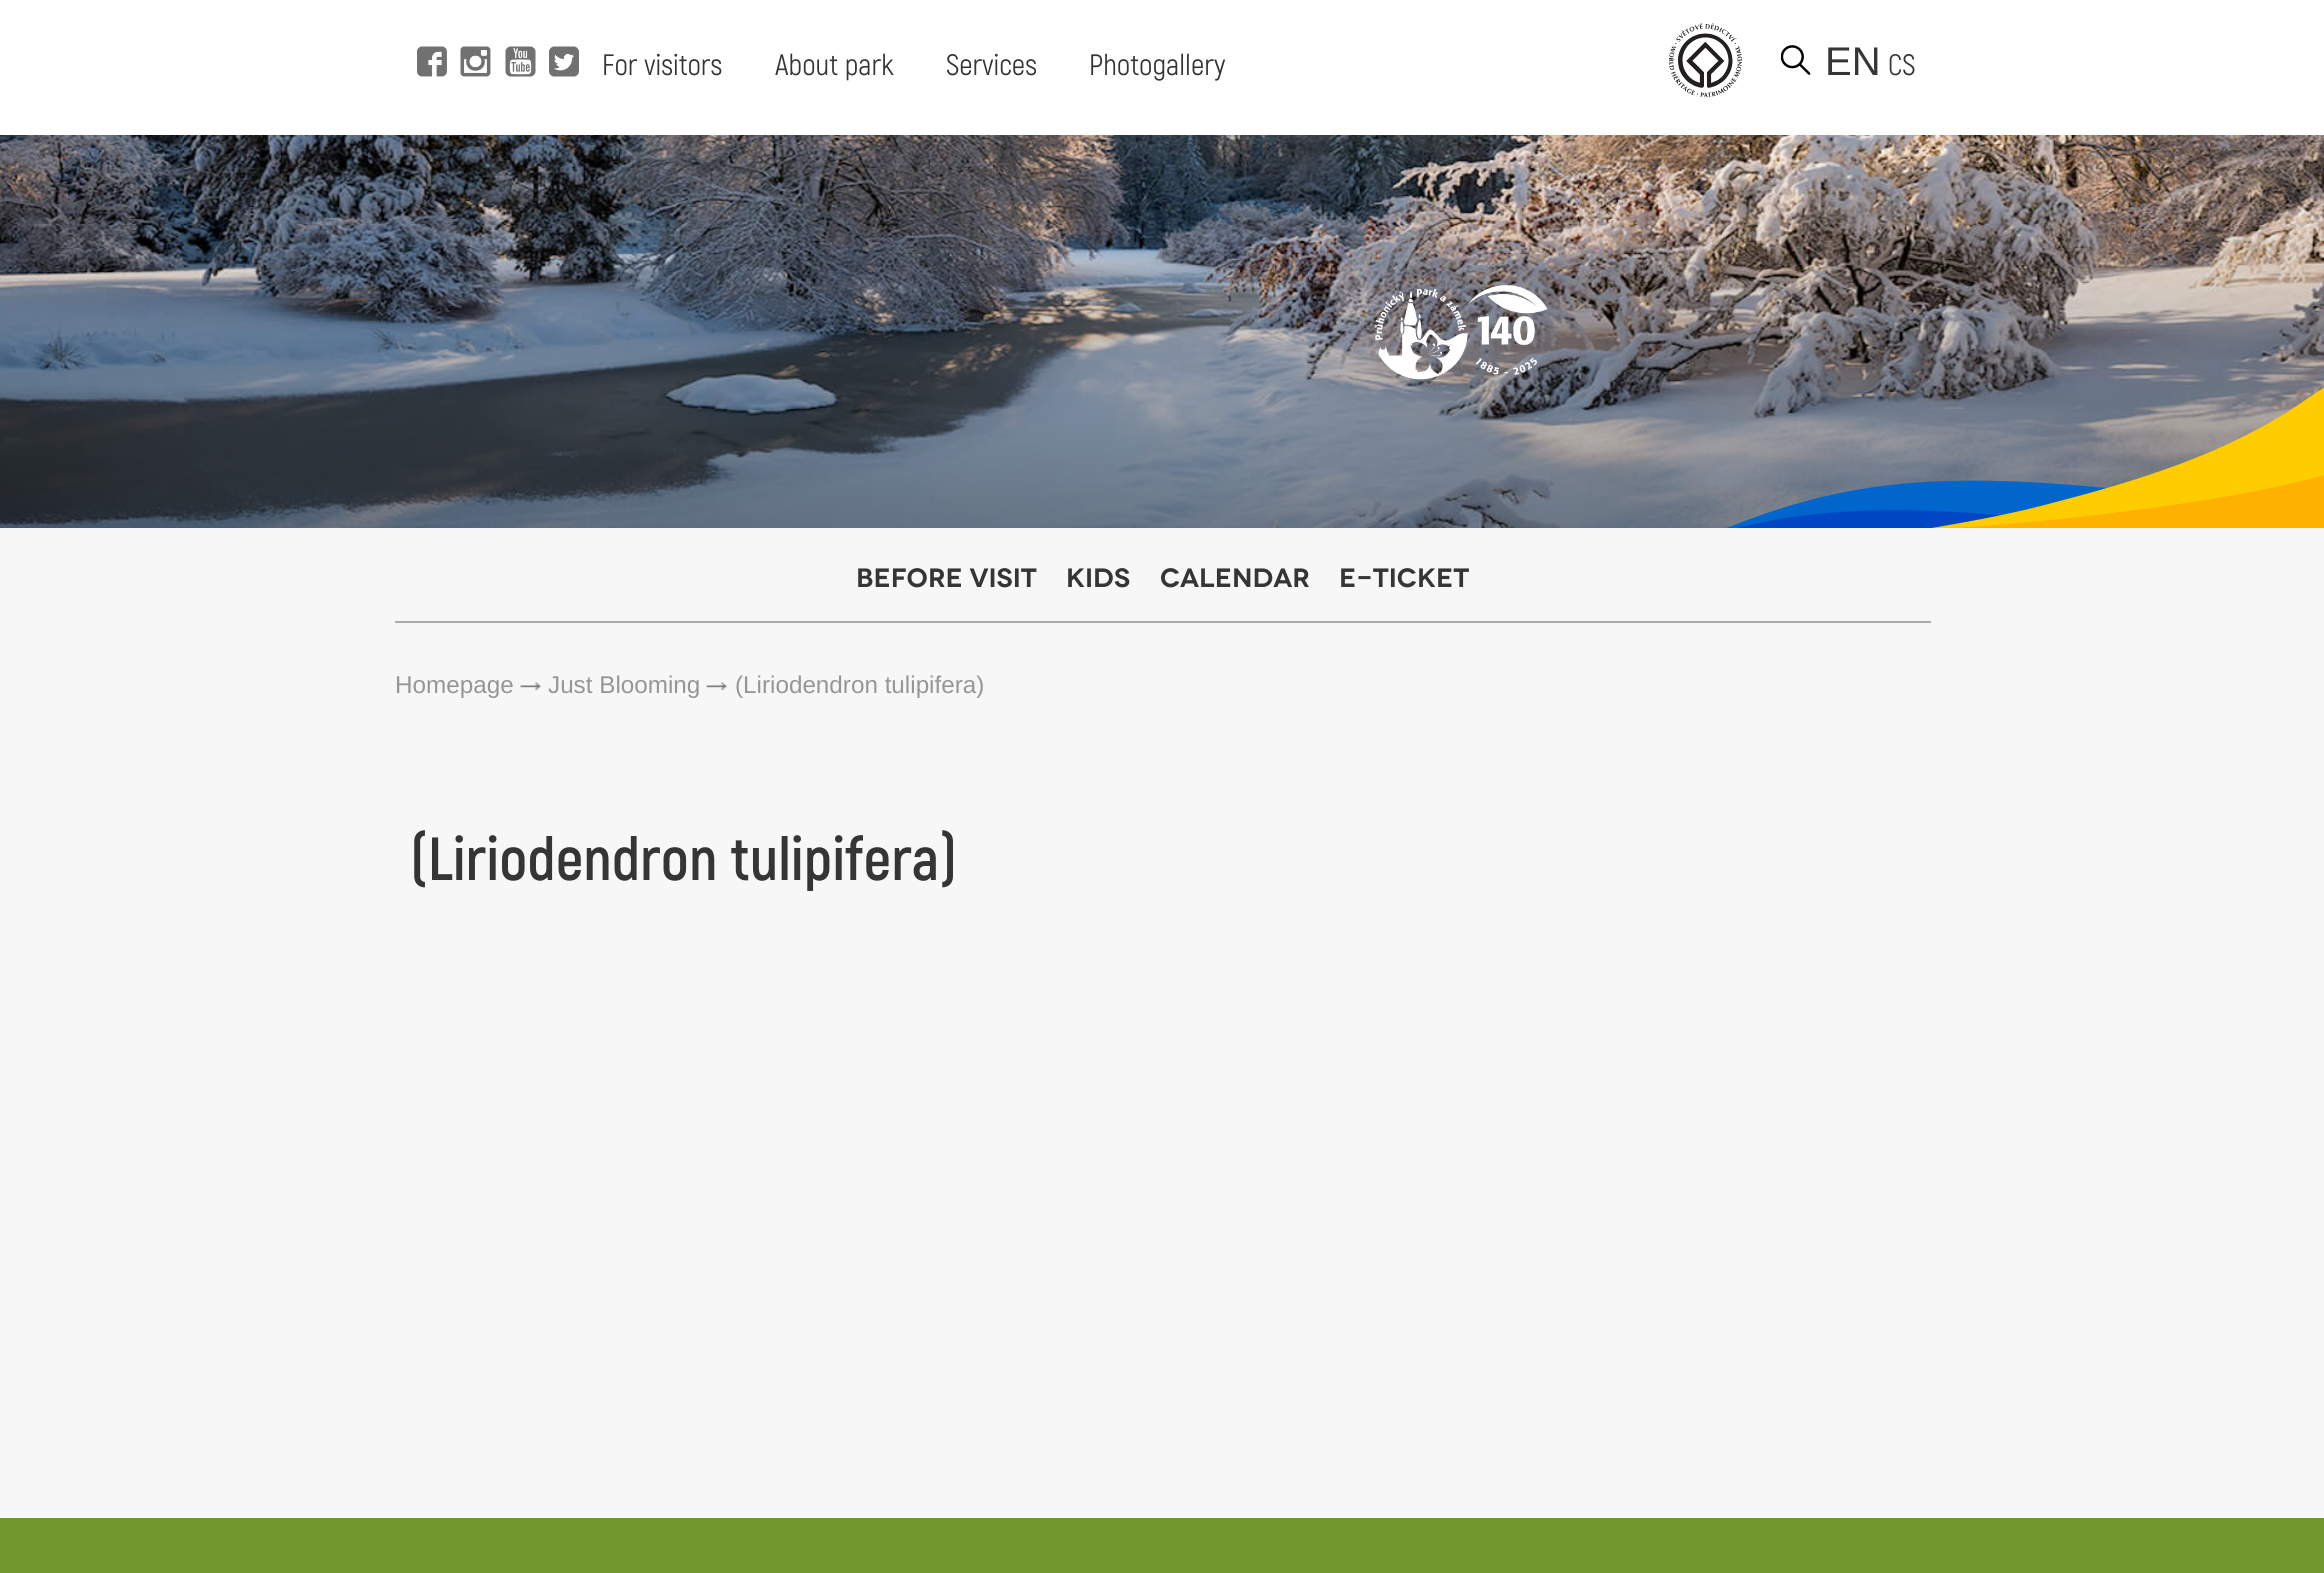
import math
import cairo

surface = cairo.ImageSurface(cairo.FORMAT_RGB24, 2324, 1573)
ctx = cairo.Context(surface)
options = cairo.FontOptions()
options.set_hint_metrics(cairo.HINT_METRICS_OFF)
options.set_hint_style(cairo.HINT_STYLE_NONE)
ctx.set_font_options(options)
ctx.set_miter_limit(4)


def picture(path, x, y, w, h):
    ctx.save()
    ctx.set_source_surface(cairo.ImageSurface.create_from_png(path), x, y)
    ctx.rectangle(x, y, w, h)
    ctx.fill()
    ctx.restore()


ctx.set_source_rgb(0.965, 0.965, 0.965)
ctx.paint()
ctx.set_source_rgb(1, 1, 1)
ctx.rectangle(0, 0, 2324, 135)
ctx.fill()
picture("img1.png", 417, 46, 30, 31)
picture("img2.png", 460, 46, 31, 31)
picture("img3.png", 505, 46, 31, 31)
picture("img4.png", 549, 46, 30, 31)
ctx.select_font_face("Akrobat")
ctx.set_font_size(29.5)
ctx.set_source_rgb(0.208, 0.208, 0.208)
ctx.move_to(602, 75)
ctx.show_text("For visitors")
ctx.move_to(775, 75)
ctx.show_text("About park")
ctx.move_to(946, 75)
ctx.show_text("Services")
ctx.move_to(1089, 75)
ctx.show_text("Photogallery")
picture("img5.png", 1669, 23, 73, 75)
picture("img6.png", 1781, 45, 30, 30)
ctx.select_font_face("Liberation Sans")
ctx.set_font_size(40)
ctx.move_to(1825, 75)
ctx.show_text("EN")
ctx.select_font_face("Akrobat")
ctx.set_font_size(29.5)
ctx.move_to(1888, 75)
ctx.show_text("CS")
picture("img7.png", 0, 135, 2324, 393)
picture("img8.png", 1374, 284, 174, 96)
picture("img9.png", 1726, 387, 598, 141)
ctx.select_font_face("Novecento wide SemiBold")
ctx.set_font_size(26.5)
ctx.move_to(856, 587)
ctx.show_text("Before visit")
ctx.move_to(1066, 587)
ctx.show_text("Kids")
ctx.move_to(1160, 587)
ctx.show_text("Calendar")
ctx.move_to(1339, 587)
ctx.show_text("E-ticket")
ctx.set_source_rgb(0.667, 0.667, 0.667)
ctx.rectangle(395, 621, 1536, 2)
ctx.fill()
ctx.select_font_face("Liberation Sans")
ctx.set_font_size(24.25)
ctx.set_source_rgb(0.588, 0.588, 0.588)
ctx.move_to(395, 693)
ctx.show_text("Homepage")
picture("img10.png", 520, 682, 22, 8)
ctx.move_to(548, 693)
ctx.show_text("Just Blooming")
picture("img10.png", 706, 682, 22, 8)
ctx.move_to(735, 693)
ctx.show_text("(Liriodendron tulipifera)")
ctx.select_font_face("Akrobat", cairo.FONT_SLANT_NORMAL, cairo.FONT_WEIGHT_BOLD)
ctx.set_font_size(60.75)
ctx.set_source_rgb(0.208, 0.208, 0.208)
ctx.move_to(410, 880)
ctx.show_text("(Liriodendron tulipifera)")
ctx.set_source_rgb(0.447, 0.592, 0.184)
ctx.rectangle(0, 1518, 2324, 55)
ctx.fill()
surface.write_to_png("page.png")
